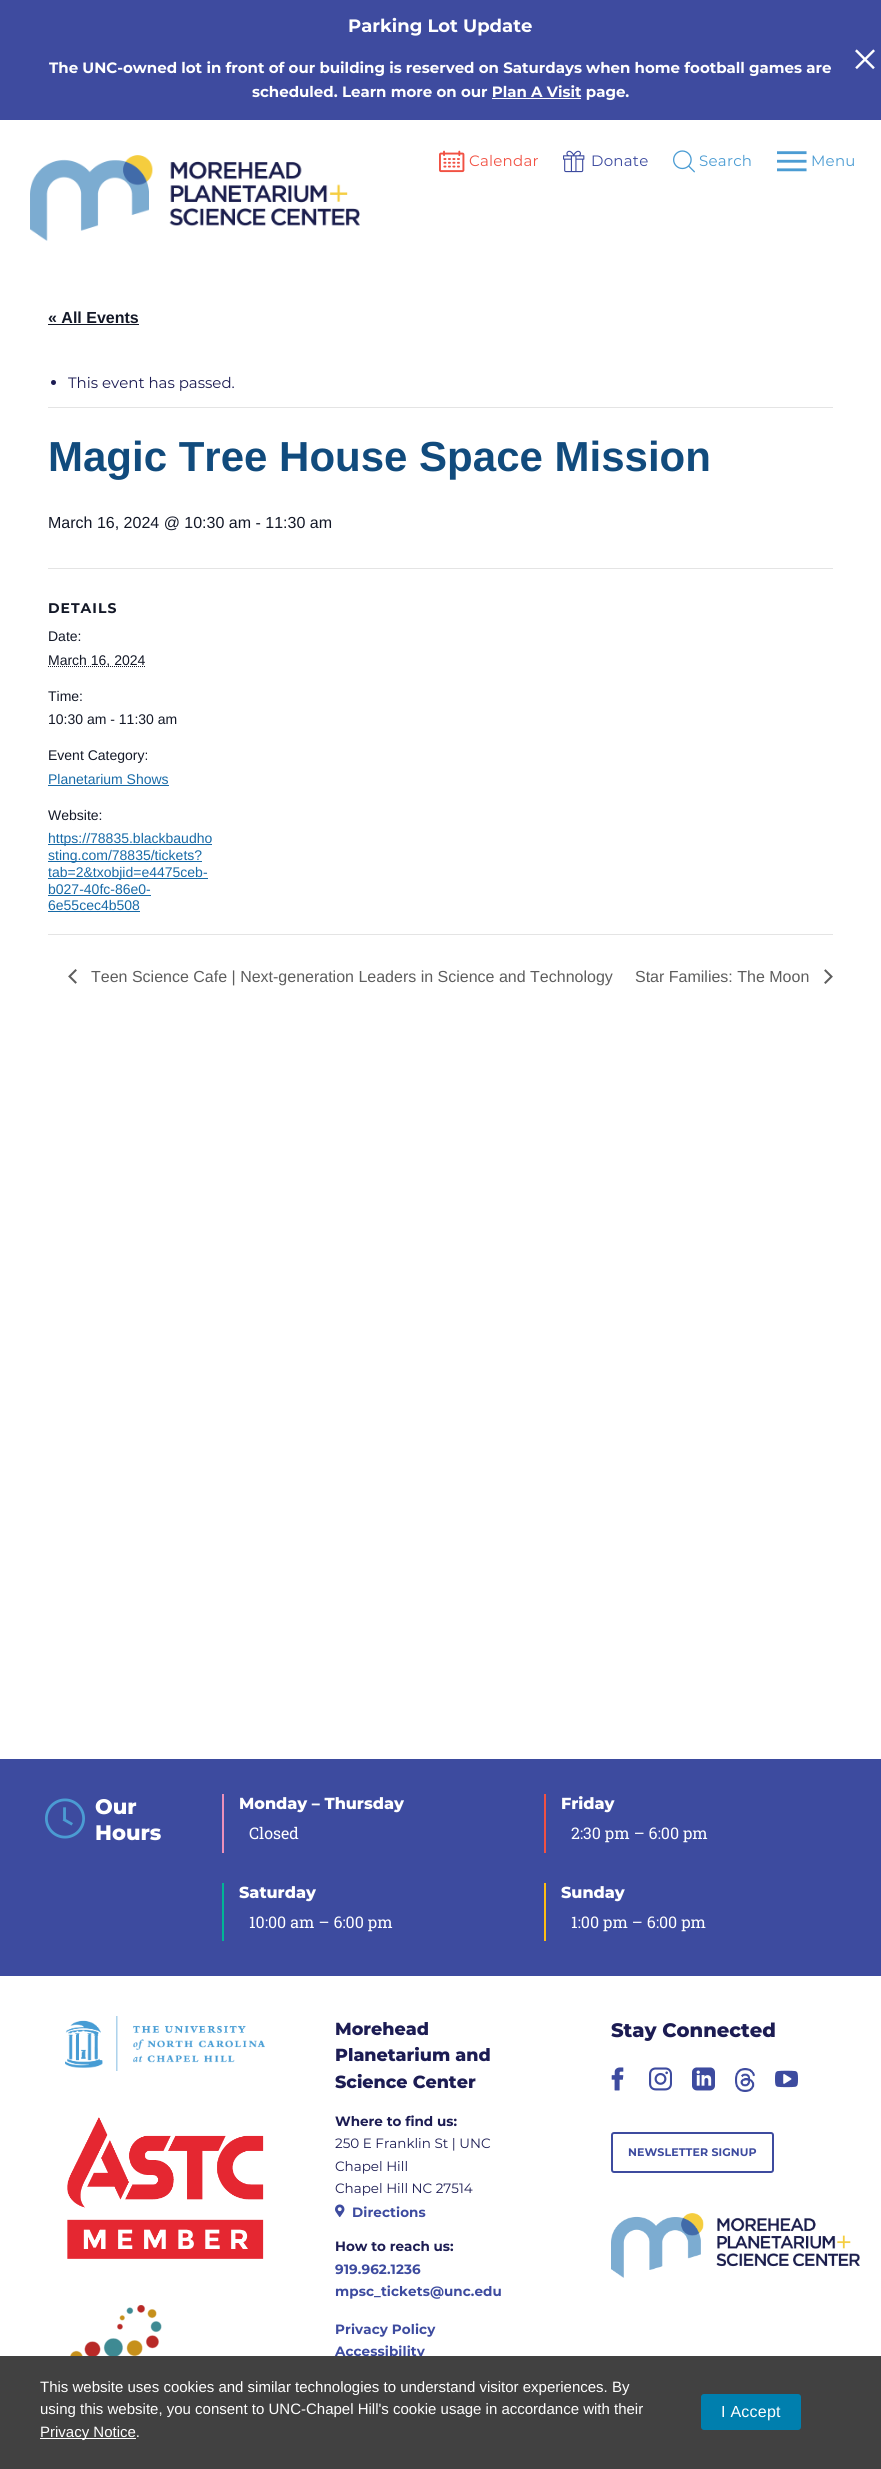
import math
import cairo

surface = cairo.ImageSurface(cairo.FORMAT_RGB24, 881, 2469)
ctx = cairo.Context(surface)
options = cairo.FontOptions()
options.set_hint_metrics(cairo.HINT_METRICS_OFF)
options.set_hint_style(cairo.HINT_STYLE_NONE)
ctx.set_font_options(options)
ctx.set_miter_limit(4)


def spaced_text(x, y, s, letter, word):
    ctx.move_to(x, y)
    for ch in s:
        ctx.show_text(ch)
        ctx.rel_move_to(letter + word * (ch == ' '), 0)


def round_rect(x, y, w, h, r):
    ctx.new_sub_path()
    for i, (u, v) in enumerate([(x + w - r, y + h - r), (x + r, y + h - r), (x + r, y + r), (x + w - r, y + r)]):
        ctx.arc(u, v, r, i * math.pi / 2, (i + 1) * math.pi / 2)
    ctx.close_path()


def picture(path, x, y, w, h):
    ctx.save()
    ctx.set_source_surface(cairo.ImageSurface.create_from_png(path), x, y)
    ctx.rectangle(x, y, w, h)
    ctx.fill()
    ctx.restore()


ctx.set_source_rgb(1, 1, 1)
ctx.paint()
ctx.set_source_rgb(0.243, 0.294, 0.624)
ctx.rectangle(0, 0, 881, 120)
ctx.fill()
ctx.select_font_face("Montserrat", cairo.FONT_SLANT_NORMAL, cairo.FONT_WEIGHT_BOLD)
ctx.set_font_size(18)
ctx.set_source_rgb(1, 1, 1)
ctx.move_to(348, 32)
ctx.show_text("Parking Lot Update")
ctx.set_font_size(15)
ctx.move_to(49, 73)
ctx.show_text("The UNC-owned lot in front of our building is reserved on Saturdays when home football games are")
ctx.move_to(252, 97)
ctx.show_text("scheduled. Learn more on our Plan A Visit page.")
ctx.rectangle(492, 98, 89, 1)
ctx.fill()
picture("img1.png", 855, 49, 20, 21)
picture("img2.png", 30, 155, 330, 86)
picture("img3.png", 439, 150, 26, 23)
ctx.select_font_face("Montserrat")
ctx.set_source_rgb(0.945, 0.318, 0.263)
spaced_text(469, 166, "Calendar", 0.25, 0)
picture("img4.png", 563, 150, 22, 23)
ctx.set_source_rgb(0.239, 0.294, 0.624)
spaced_text(591, 166, "Donate", 0.25, 0)
picture("img5.png", 673, 150, 22, 23)
ctx.set_source_rgb(0.294, 0.612, 0.827)
spaced_text(699, 166, "Search", 0.25, 0)
picture("img6.png", 777, 151, 30, 21)
spaced_text(811, 166, "Menu", 0.25, 0)
ctx.select_font_face("Liberation Sans", cairo.FONT_SLANT_NORMAL, cairo.FONT_WEIGHT_BOLD)
ctx.set_font_size(16)
ctx.set_source_rgb(0.078, 0.094, 0.153)
ctx.move_to(48, 323)
ctx.show_text("« All Events")
ctx.rectangle(48, 324, 91, 1)
ctx.fill()
ctx.set_source_rgb(0.894, 0.894, 0.894)
ctx.rectangle(48, 407, 785, 1)
ctx.fill()
ctx.set_source_rgb(0.11, 0.11, 0.325)
ctx.arc(53.5, 382.5, 2.5, 0, 2 * math.pi)
ctx.fill()
ctx.select_font_face("Montserrat")
ctx.set_font_size(15)
ctx.move_to(68, 388)
ctx.show_text("This event has passed.")
ctx.select_font_face("Liberation Sans", cairo.FONT_SLANT_NORMAL, cairo.FONT_WEIGHT_BOLD)
ctx.set_font_size(42)
ctx.set_source_rgb(0.067, 0.294, 0.49)
ctx.move_to(48, 471)
ctx.show_text("Magic Tree House Space Mission")
ctx.select_font_face("Liberation Sans")
ctx.set_font_size(16)
ctx.set_source_rgb(0.078, 0.094, 0.153)
ctx.move_to(48, 528)
ctx.show_text("March 16, 2024 @ 10:30 am - 11:30 am")
ctx.set_source_rgb(0.894, 0.894, 0.894)
ctx.rectangle(48, 568, 785, 1)
ctx.fill()
ctx.select_font_face("Montserrat", cairo.FONT_SLANT_NORMAL, cairo.FONT_WEIGHT_BOLD)
ctx.set_font_size(14)
ctx.set_source_rgb(0.078, 0.094, 0.153)
spaced_text(48, 613, "DETAILS", 1, 0)
ctx.select_font_face("Liberation Sans")
ctx.move_to(48, 641)
ctx.show_text("Date:")
ctx.new_path()
ctx.move_to(48, 666.5)
ctx.line_to(145.5, 666.5)
ctx.set_line_width(1)
ctx.set_dash([1, 1])
ctx.stroke()
ctx.move_to(48, 665)
ctx.show_text("March 16, 2024")
ctx.move_to(48, 701)
ctx.show_text("Time:")
ctx.move_to(48, 724)
ctx.show_text("10:30 am - 11:30 am")
ctx.move_to(48, 760)
ctx.show_text("Event Category:")
ctx.set_source_rgb(0.09, 0.416, 0.655)
ctx.move_to(48, 784)
ctx.show_text("Planetarium Shows")
ctx.rectangle(48, 785, 121, 1)
ctx.fill()
ctx.set_source_rgb(0.078, 0.094, 0.153)
ctx.move_to(48, 820)
ctx.show_text("Website:")
ctx.set_source_rgb(0.09, 0.416, 0.655)
ctx.rectangle(48, 844, 164, 1)
ctx.fill()
ctx.move_to(48, 843)
ctx.show_text("https://78835.blackbaudho")
ctx.rectangle(48, 861, 154, 1)
ctx.fill()
ctx.move_to(48, 860)
ctx.show_text("sting.com/78835/tickets?")
ctx.rectangle(48, 878, 160, 1)
ctx.fill()
ctx.move_to(48, 877)
ctx.show_text("tab=2&txobjid=e4475ceb-")
ctx.move_to(48, 894)
ctx.show_text("b027-40fc-86e0-")
ctx.rectangle(48, 895, 103, 1)
ctx.fill()
ctx.move_to(48, 910)
ctx.show_text("6e55cec4b508")
ctx.rectangle(48, 911, 92, 1)
ctx.fill()
ctx.set_source_rgb(0.894, 0.894, 0.894)
ctx.rectangle(48, 934, 785, 1)
ctx.fill()
picture("img7.png", 68, 969, 9, 15)
ctx.set_font_size(16)
ctx.set_source_rgb(0.365, 0.365, 0.365)
ctx.move_to(91, 982)
ctx.show_text("Teen Science Cafe | Next-generation Leaders in Science and Technology")
ctx.move_to(635, 982)
ctx.show_text("Star Families: The Moon")
picture("img8.png", 824, 969, 9, 15)
ctx.set_source_rgb(0.239, 0.294, 0.624)
ctx.rectangle(0, 1759, 881, 217)
ctx.fill()
picture("img9.png", 45, 1798, 40, 41)
ctx.select_font_face("Montserrat ExtraBold")
ctx.set_font_size(21)
ctx.set_source_rgb(1, 1, 1)
ctx.move_to(95, 1814)
ctx.show_text("Our")
ctx.move_to(95, 1840)
ctx.show_text("Hours")
ctx.set_source_rgb(0.922, 0.565, 0.729)
ctx.rectangle(222, 1794, 2, 59)
ctx.fill()
ctx.set_font_size(16)
ctx.set_source_rgb(1, 1, 1)
ctx.move_to(239, 1809)
ctx.show_text("Monday – Thursday")
ctx.select_font_face("Roboto Slab")
ctx.move_to(249, 1839)
ctx.show_text("Closed")
ctx.set_source_rgb(0.945, 0.318, 0.263)
ctx.rectangle(544, 1794, 2, 59)
ctx.fill()
ctx.select_font_face("Montserrat ExtraBold")
ctx.set_source_rgb(1, 1, 1)
ctx.move_to(561, 1809)
ctx.show_text("Friday")
ctx.select_font_face("Roboto Slab")
ctx.move_to(571, 1839)
ctx.show_text("2:30 pm – 6:00 pm")
ctx.set_source_rgb(0.004, 0.71, 0.584)
ctx.rectangle(222, 1883, 2, 58)
ctx.fill()
ctx.select_font_face("Montserrat ExtraBold")
ctx.set_source_rgb(1, 1, 1)
ctx.move_to(239, 1898)
ctx.show_text("Saturday")
ctx.select_font_face("Roboto Slab")
ctx.move_to(249, 1928)
ctx.show_text("10:00 am – 6:00 pm")
ctx.set_source_rgb(0.996, 0.741, 0.075)
ctx.rectangle(544, 1883, 2, 58)
ctx.fill()
ctx.select_font_face("Montserrat ExtraBold")
ctx.set_source_rgb(1, 1, 1)
ctx.move_to(561, 1898)
ctx.show_text("Sunday")
ctx.select_font_face("Roboto Slab")
ctx.move_to(571, 1928)
ctx.show_text("1:00 pm – 6:00 pm")
picture("img10.png", 65, 2016, 200, 55)
picture("img11.png", 67, 2117, 197, 142)
picture("img12.png", 70, 2305, 92, 51)
ctx.select_font_face("Montserrat ExtraBold")
ctx.set_font_size(17.5)
ctx.set_source_rgb(0.11, 0.11, 0.325)
ctx.move_to(335, 2035)
ctx.show_text("Morehead")
ctx.move_to(335, 2061)
ctx.show_text("Planetarium and")
ctx.move_to(335, 2088)
ctx.show_text("Science Center")
ctx.select_font_face("Montserrat", cairo.FONT_SLANT_NORMAL, cairo.FONT_WEIGHT_BOLD)
ctx.set_font_size(13.5)
ctx.move_to(335, 2126)
ctx.show_text("Where to find us:")
ctx.select_font_face("Montserrat")
ctx.move_to(335, 2148)
ctx.show_text("250 E Franklin St | UNC")
ctx.move_to(335, 2171)
ctx.show_text("Chapel Hill")
ctx.move_to(335, 2193)
ctx.show_text("Chapel Hill NC 27514")
picture("img13.png", 335, 2204, 10, 14)
ctx.select_font_face("Montserrat", cairo.FONT_SLANT_NORMAL, cairo.FONT_WEIGHT_BOLD)
ctx.set_source_rgb(0.239, 0.294, 0.624)
spaced_text(352, 2217, "Directions", 0.1, 0)
ctx.set_source_rgb(0.11, 0.11, 0.325)
ctx.move_to(335, 2251)
ctx.show_text("How to reach us:")
ctx.set_source_rgb(0.239, 0.294, 0.624)
spaced_text(335, 2274, "919.962.1236", 0.1, 0)
spaced_text(335, 2296, "mpsc_tickets@unc.edu", 0.1, 0)
spaced_text(335, 2334, "Privacy Policy", 0.1, 0)
spaced_text(335, 2356, "Accessibility", 0.1, 0)
ctx.select_font_face("Montserrat ExtraBold")
ctx.set_font_size(19.5)
ctx.set_source_rgb(0.11, 0.11, 0.325)
ctx.move_to(611, 2037)
ctx.show_text("Stay Connected")
picture("img14.png", 611, 2067, 13, 24)
picture("img15.png", 649, 2067, 23, 24)
picture("img16.png", 692, 2067, 23, 24)
picture("img17.png", 735, 2068, 20, 24)
picture("img18.png", 775, 2070, 23, 18)
round_rect(612, 2133, 161, 39, 2)
ctx.set_source_rgb(0.239, 0.294, 0.624)
ctx.set_line_width(2)
ctx.set_dash([])
ctx.stroke()
ctx.select_font_face("Montserrat", cairo.FONT_SLANT_NORMAL, cairo.FONT_WEIGHT_BOLD)
ctx.set_font_size(11)
spaced_text(628, 2156, "NEWSLETTER SIGNUP", 0.1, 0)
picture("img19.png", 611, 2213, 249, 65)
ctx.set_source_rgb(0.255, 0.255, 0.255)
ctx.rectangle(0, 2356, 881, 113)
ctx.fill()
ctx.select_font_face("Liberation Sans")
ctx.set_font_size(15)
ctx.set_source_rgb(1, 1, 1)
ctx.move_to(40, 2392)
ctx.show_text("This website uses cookies and similar technologies to understand visitor experiences. By")
ctx.move_to(40, 2414)
ctx.show_text("using this website, you consent to UNC-Chapel Hill's cookie usage in accordance with their")
ctx.rectangle(40, 2438, 96, 1)
ctx.fill()
ctx.move_to(40, 2437)
ctx.show_text("Privacy Notice.")
ctx.set_source_rgb(0, 0.498, 0.682)
round_rect(701, 2394, 100, 36, 3)
ctx.fill()
ctx.set_font_size(16)
ctx.set_source_rgb(1, 1, 1)
spaced_text(721, 2417, "I Accept", 0.25, 0)
surface.write_to_png("page.png")
